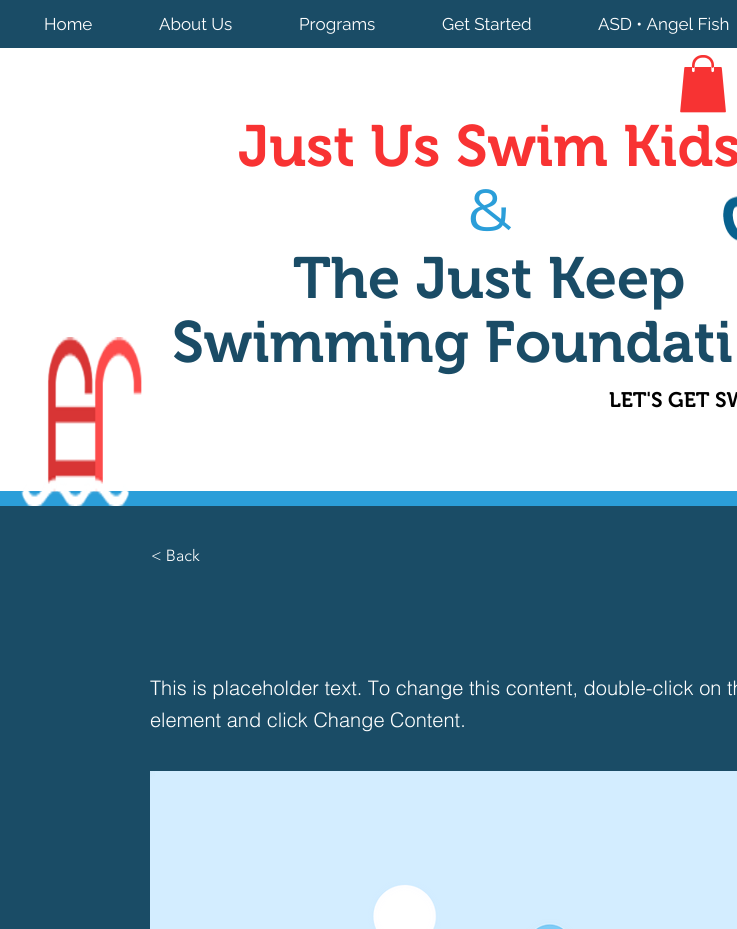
import math
import cairo

surface = cairo.ImageSurface(cairo.FORMAT_RGB24, 737, 929)
ctx = cairo.Context(surface)
options = cairo.FontOptions()
options.set_hint_metrics(cairo.HINT_METRICS_OFF)
options.set_hint_style(cairo.HINT_STYLE_NONE)
ctx.set_font_options(options)
ctx.set_miter_limit(4)


def picture(path, x, y, w, h):
    ctx.save()
    ctx.set_source_surface(cairo.ImageSurface.create_from_png(path), x, y)
    ctx.rectangle(x, y, w, h)
    ctx.fill()
    ctx.restore()


ctx.set_source_rgb(0.102, 0.298, 0.4)
ctx.paint()
ctx.select_font_face("Raleway")
ctx.set_font_size(17)
ctx.set_source_rgb(1, 1, 1)
ctx.move_to(44, 30)
ctx.show_text("Home")
ctx.move_to(159, 30)
ctx.show_text("About Us")
ctx.move_to(299, 30)
ctx.show_text("Programs")
ctx.move_to(442, 30)
ctx.show_text("Get Started")
ctx.move_to(598, 30)
ctx.show_text("ASD • Angel Fish")
ctx.rectangle(0, 48, 737, 443)
ctx.fill()
ctx.select_font_face("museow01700 SemiBold")
ctx.set_font_size(58)
ctx.set_source_rgb(0.969, 0.2, 0.2)
ctx.move_to(238, 166)
ctx.show_text("Just Us Swim Kids")
ctx.select_font_face("Nobile")
ctx.set_source_rgb(0.169, 0.62, 0.851)
ctx.move_to(467, 230)
ctx.show_text("&")
ctx.select_font_face("museow01700 SemiBold")
ctx.set_source_rgb(0.102, 0.298, 0.4)
ctx.move_to(293, 298)
ctx.show_text("The Just Keep")
ctx.move_to(172, 362)
ctx.show_text("Swimming Foundati")
picture("img1.png", 723, 196, 14, 45)
ctx.set_source_rgb(0.169, 0.62, 0.851)
ctx.rectangle(0, 491, 737, 15)
ctx.fill()
picture("img2.png", 21, 337, 121, 169)
ctx.set_font_size(21)
ctx.set_source_rgb(0, 0, 0)
ctx.move_to(609, 407)
ctx.show_text("LET'S GET SW")
picture("img3.png", 680, 55, 46, 58)
ctx.select_font_face("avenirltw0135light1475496 Light")
ctx.set_font_size(16)
ctx.set_source_rgb(1, 1, 1)
ctx.move_to(151, 561)
ctx.show_text("< Back")
ctx.select_font_face("helvetica Light")
ctx.set_font_size(20)
ctx.move_to(150, 695)
ctx.show_text("This is placeholder text. To change this content, double-click on th")
ctx.move_to(150, 727)
ctx.show_text("element and click Change Content.")
picture("img4.png", 150, 771, 587, 158)
surface.write_to_png("page.png")
